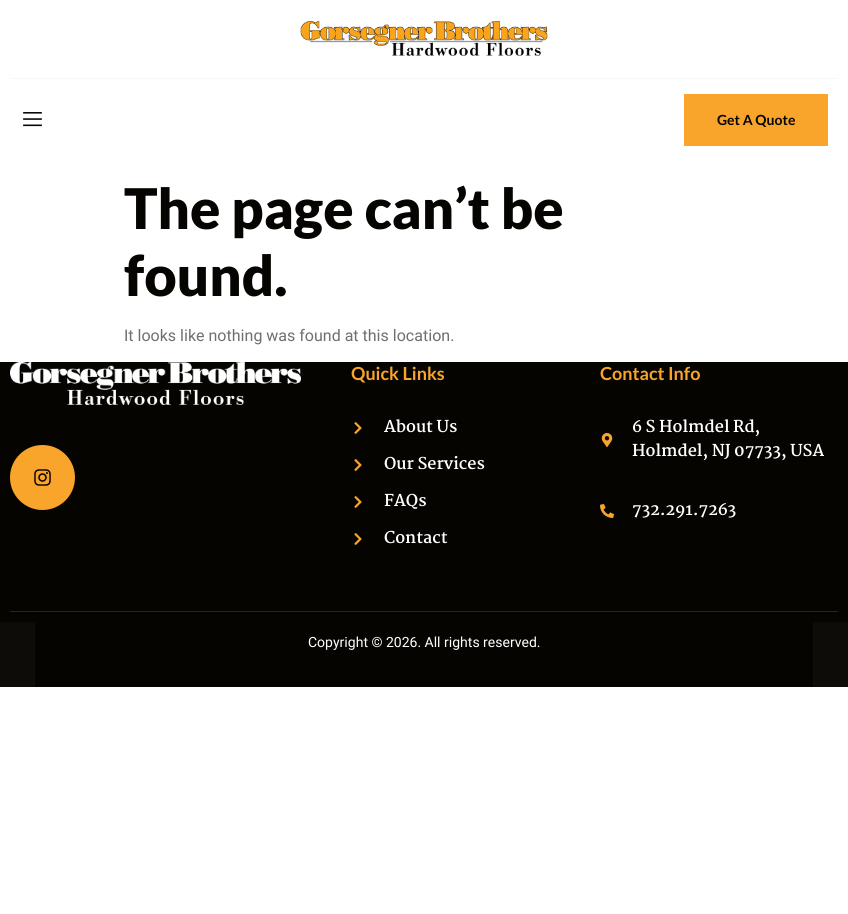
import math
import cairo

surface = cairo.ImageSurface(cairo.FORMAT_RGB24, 848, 914)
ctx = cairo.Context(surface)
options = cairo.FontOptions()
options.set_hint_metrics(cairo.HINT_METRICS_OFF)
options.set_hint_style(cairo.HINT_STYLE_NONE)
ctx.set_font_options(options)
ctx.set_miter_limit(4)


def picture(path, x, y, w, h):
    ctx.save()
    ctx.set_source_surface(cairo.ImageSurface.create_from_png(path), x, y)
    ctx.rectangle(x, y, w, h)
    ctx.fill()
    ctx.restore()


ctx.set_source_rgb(1, 1, 1)
ctx.paint()
ctx.set_source_rgb(0.965, 0.965, 0.965)
ctx.rectangle(10, 78, 828, 1)
ctx.fill()
picture("img1.png", 300, 20, 248, 36)
picture("img2.png", 23, 112, 19, 15)
ctx.set_source_rgb(0.976, 0.643, 0.165)
ctx.rectangle(684, 94, 144, 52)
ctx.fill()
ctx.select_font_face("Lato", cairo.FONT_SLANT_NORMAL, cairo.FONT_WEIGHT_BOLD)
ctx.set_font_size(14)
ctx.set_source_rgb(0.027, 0.016, 0)
ctx.move_to(717, 125)
ctx.show_text("Get A Quote")
ctx.select_font_face("Lato Black")
ctx.set_font_size(56)
ctx.move_to(124, 229)
ctx.show_text("The page can’t be")
ctx.move_to(124, 296)
ctx.show_text("found.")
ctx.select_font_face("Heebo")
ctx.set_font_size(16)
ctx.set_source_rgb(0.439, 0.435, 0.427)
ctx.move_to(124, 341)
ctx.show_text("It looks like nothing was found at this location.")
ctx.set_source_rgb(0.027, 0.016, 0)
ctx.rectangle(0, 362, 848, 325)
ctx.fill()
picture("img3.png", 10, 362, 291, 43)
ctx.set_source_rgb(0.976, 0.643, 0.165)
ctx.arc(42.5, 477.5, 32.5, 0, 2 * math.pi)
ctx.fill()
picture("img4.png", 34, 469, 17, 17)
ctx.select_font_face("Lato", cairo.FONT_SLANT_NORMAL, cairo.FONT_WEIGHT_BOLD)
ctx.set_font_size(18)
ctx.move_to(351, 380)
ctx.show_text("Quick Links")
picture("img5.png", 354, 422, 8, 12)
ctx.select_font_face("Martel", cairo.FONT_SLANT_NORMAL, cairo.FONT_WEIGHT_BOLD)
ctx.set_font_size(16)
ctx.set_source_rgb(1, 1, 1)
ctx.move_to(384, 432)
ctx.show_text("About Us")
picture("img5.png", 354, 459, 8, 12)
ctx.move_to(384, 469)
ctx.show_text("Our Services")
picture("img5.png", 354, 496, 8, 12)
ctx.move_to(384, 506)
ctx.show_text("FAQs")
picture("img5.png", 354, 533, 8, 12)
ctx.move_to(384, 543)
ctx.show_text("Contact")
ctx.select_font_face("Lato", cairo.FONT_SLANT_NORMAL, cairo.FONT_WEIGHT_BOLD)
ctx.set_font_size(18)
ctx.set_source_rgb(0.976, 0.643, 0.165)
ctx.move_to(600, 380)
ctx.show_text("Contact Info")
picture("img6.png", 601, 433, 12, 14)
ctx.select_font_face("Martel", cairo.FONT_SLANT_NORMAL, cairo.FONT_WEIGHT_BOLD)
ctx.set_font_size(16)
ctx.set_source_rgb(1, 1, 1)
ctx.move_to(632, 432)
ctx.show_text("6 S Holmdel Rd,")
ctx.move_to(632, 456)
ctx.show_text("Holmdel, NJ 07733, USA")
picture("img7.png", 600, 504, 14, 14)
ctx.move_to(632, 515)
ctx.show_text("732.291.7263")
ctx.set_source_rgb(0.153, 0.145, 0.129)
ctx.rectangle(10, 611, 828, 1)
ctx.fill()
picture("img8.png", 0, 622, 848, 65)
ctx.select_font_face("Heebo")
ctx.set_font_size(14)
ctx.set_source_rgb(1, 1, 1)
ctx.move_to(308, 647)
ctx.show_text("Copyright © 2026. All rights reserved.")
surface.write_to_png("page.png")
